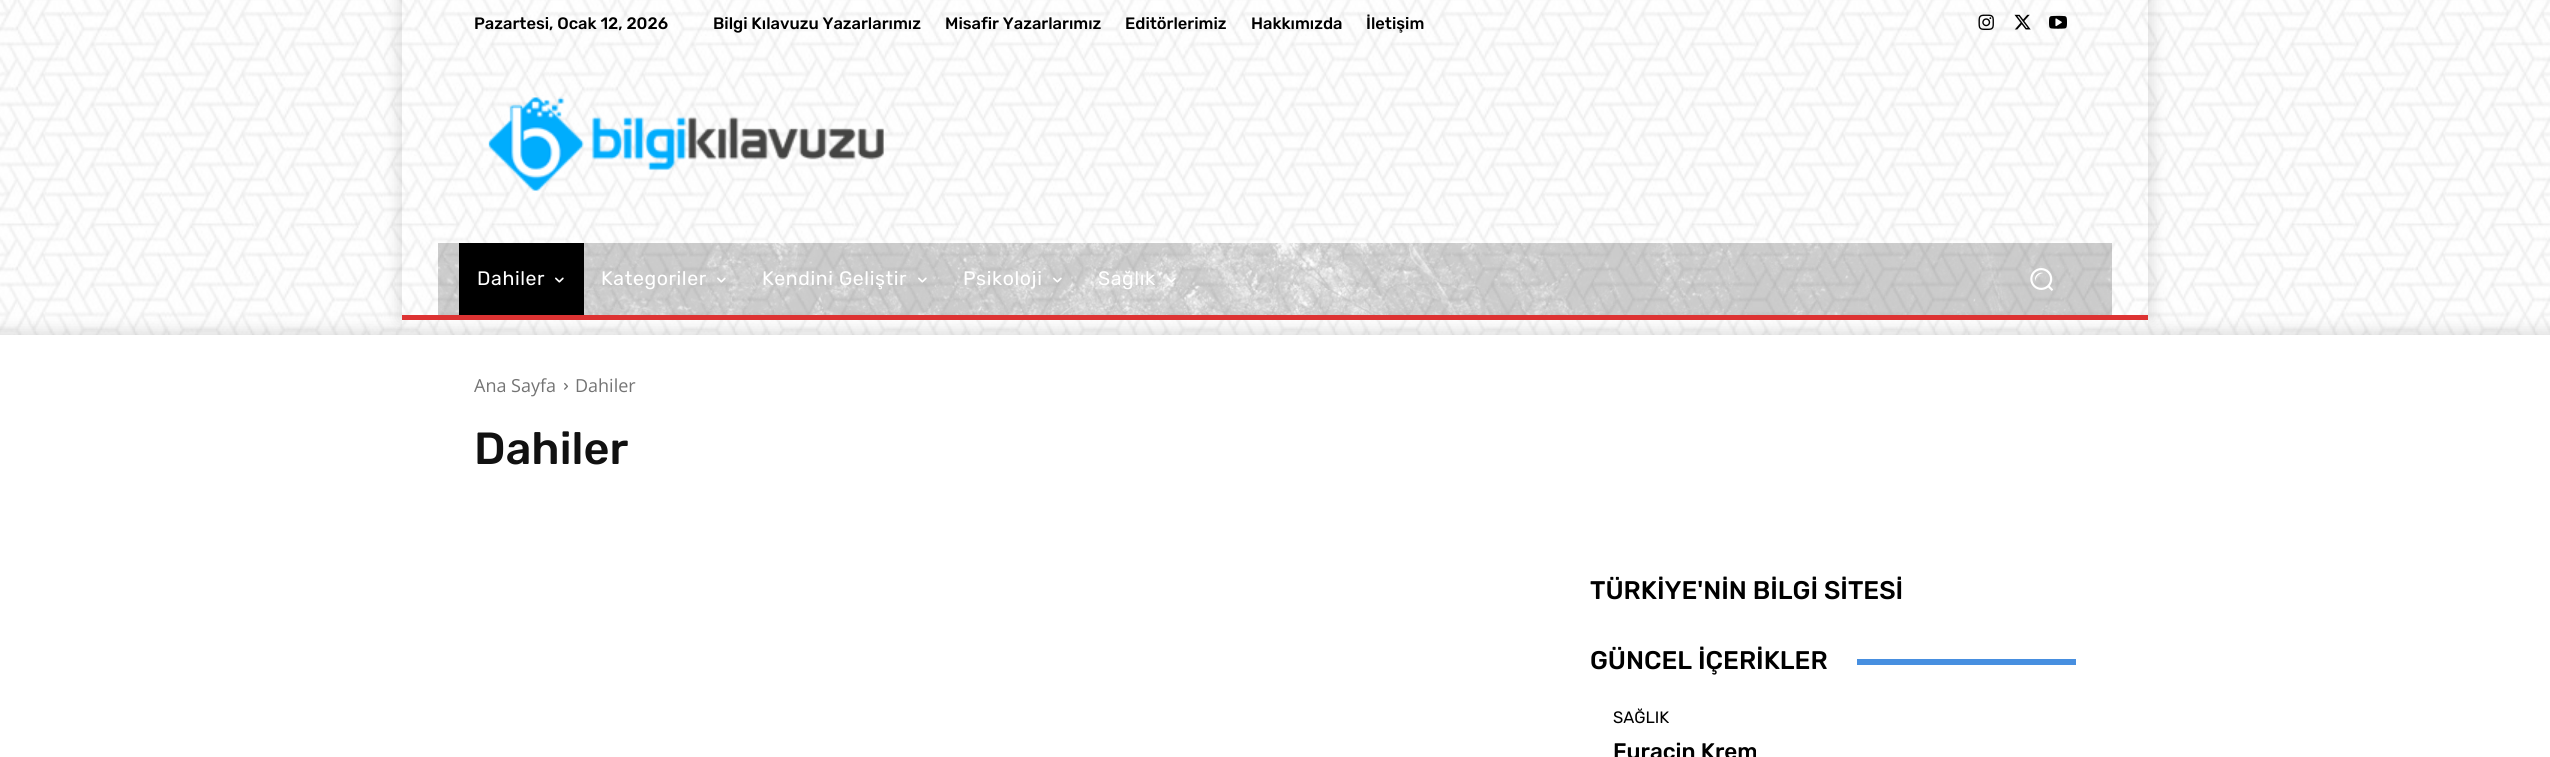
import math
import cairo

surface = cairo.ImageSurface(cairo.FORMAT_RGB24, 2550, 757)
ctx = cairo.Context(surface)
options = cairo.FontOptions()
options.set_hint_metrics(cairo.HINT_METRICS_OFF)
options.set_hint_style(cairo.HINT_STYLE_NONE)
ctx.set_font_options(options)
ctx.set_miter_limit(4)


def spaced_text(x, y, s, letter, word):
    ctx.move_to(x, y)
    for ch in s:
        ctx.show_text(ch)
        ctx.rel_move_to(letter + word * (ch == ' '), 0)


def round_rect(x, y, w, h, r):
    ctx.new_sub_path()
    for i, (u, v) in enumerate([(x + w - r, y + h - r), (x + r, y + h - r), (x + r, y + r), (x + w - r, y + r)]):
        ctx.arc(u, v, r, i * math.pi / 2, (i + 1) * math.pi / 2)
    ctx.close_path()


def shadow(x, y, w, h, r, blur, alpha):
    ctx.push_group_with_content(cairo.CONTENT_ALPHA)
    ctx.set_operator(cairo.OPERATOR_SOURCE)
    for i in range(15, -16, -2):
        e = blur * i / 6
        if min(w, h) + 2 * e > 0:
            ctx.set_source_rgba(0, 0, 0, alpha * math.erfc((i - 1) / 8.5) / 2)
            round_rect(x - e, y - e, w + 2 * e, h + 2 * e, max(0, min(r + e + blur * .6, min(w, h) / 2 + e)))
            ctx.fill()
    ctx.mask(ctx.pop_group())


def picture(path, x, y, w, h):
    ctx.save()
    ctx.set_source_surface(cairo.ImageSurface.create_from_png(path), x, y)
    ctx.rectangle(x, y, w, h)
    ctx.fill()
    ctx.restore()


ctx.set_source_rgb(1, 1, 1)
ctx.paint()
picture("img1.png", 0, 0, 2550, 335)
ctx.set_source_rgb(0, 0, 0)
shadow(-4, 330, 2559, 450, 0, 7.5, 0.12)
ctx.set_source_rgb(1, 1, 1)
ctx.rectangle(0, 335, 2550, 422)
ctx.fill()
ctx.save()
ctx.set_fill_rule(cairo.FILL_RULE_EVEN_ODD)
ctx.new_path()
ctx.move_to(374, 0)
ctx.line_to(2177, 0)
ctx.line_to(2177, 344)
ctx.line_to(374, 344)
ctx.close_path()
ctx.move_to(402, 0)
ctx.line_to(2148, 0)
ctx.line_to(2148, 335)
ctx.line_to(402, 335)
ctx.close_path()
ctx.clip()
ctx.set_source_rgb(0, 0, 0)
shadow(398, -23, 1755, 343, 0, 7.5, 0.12)
ctx.restore()
ctx.select_font_face("Rubik Medium")
ctx.set_font_size(16.5)
ctx.set_source_rgb(0, 0, 0)
ctx.move_to(474, 29)
ctx.show_text("Pazartesi, Ocak 12, 2026")
ctx.move_to(713, 29)
ctx.show_text("Bilgi Kılavuzu Yazarlarımız")
ctx.move_to(945, 29)
ctx.show_text("Misafir Yazarlarımız")
ctx.move_to(1125, 29)
ctx.show_text("Editörlerimiz")
ctx.move_to(1251, 29)
ctx.show_text("Hakkımızda")
ctx.move_to(1366, 29)
ctx.show_text("İletişim")
picture("img2.png", 1978, 14, 16, 16)
picture("img3.png", 2014, 14, 17, 16)
picture("img4.png", 2049, 15, 18, 14)
picture("img5.png", 488, 97, 396, 94)
picture("img6.png", 438, 243, 1674, 72)
ctx.rectangle(459, 243, 125, 72)
ctx.fill()
ctx.select_font_face("Rubik")
ctx.set_font_size(19.5)
ctx.set_source_rgb(1, 1, 1)
spaced_text(477, 285, "Dahiler", 0.6, 0)
picture("img7.png", 555, 277, 9, 6)
spaced_text(601, 285, "Kategoriler", 0.6, 0)
picture("img8.png", 717, 277, 9, 6)
spaced_text(762, 285, "Kendini Geliştir", 0.6, 0)
picture("img9.png", 918, 277, 9, 6)
spaced_text(963, 285, "Psikoloji", 0.6, 0)
picture("img10.png", 1053, 277, 9, 6)
spaced_text(1098, 285, "Sağlık", 0.6, 0)
picture("img11.png", 1167, 277, 9, 6)
picture("img12.png", 2030, 268, 23, 23)
ctx.set_source_rgb(0.867, 0.2, 0.2)
ctx.rectangle(402, 315, 1746, 5)
ctx.fill()
ctx.select_font_face("Open Sans")
ctx.set_font_size(18)
ctx.set_source_rgb(0.455, 0.455, 0.455)
ctx.move_to(474, 392)
ctx.show_text("Ana Sayfa")
picture("img13.png", 564, 382, 4, 8)
ctx.move_to(575, 392)
ctx.show_text("Dahiler")
ctx.select_font_face("Rubik Medium")
ctx.set_font_size(45)
ctx.set_source_rgb(0.067, 0.067, 0.067)
ctx.move_to(474, 464)
ctx.show_text("Dahiler")
ctx.set_font_size(25.5)
ctx.set_source_rgb(0, 0, 0)
ctx.move_to(1590, 599)
ctx.show_text("TÜRKİYE'NİN BİLGİ SİTESİ")
ctx.move_to(1590, 669)
ctx.show_text("GÜNCEL İÇERİKLER")
ctx.set_source_rgb(0.278, 0.561, 0.878)
ctx.rectangle(1857, 659, 219, 6)
ctx.fill()
ctx.select_font_face("Rubik")
ctx.set_font_size(16.5)
ctx.set_source_rgb(0, 0, 0)
ctx.move_to(1613, 723)
ctx.show_text("SAĞLIK")
ctx.select_font_face("Rubik Medium")
ctx.set_font_size(22.5)
ctx.move_to(1613, 759)
ctx.show_text("Furacin Krem")
surface.write_to_png("page.png")
